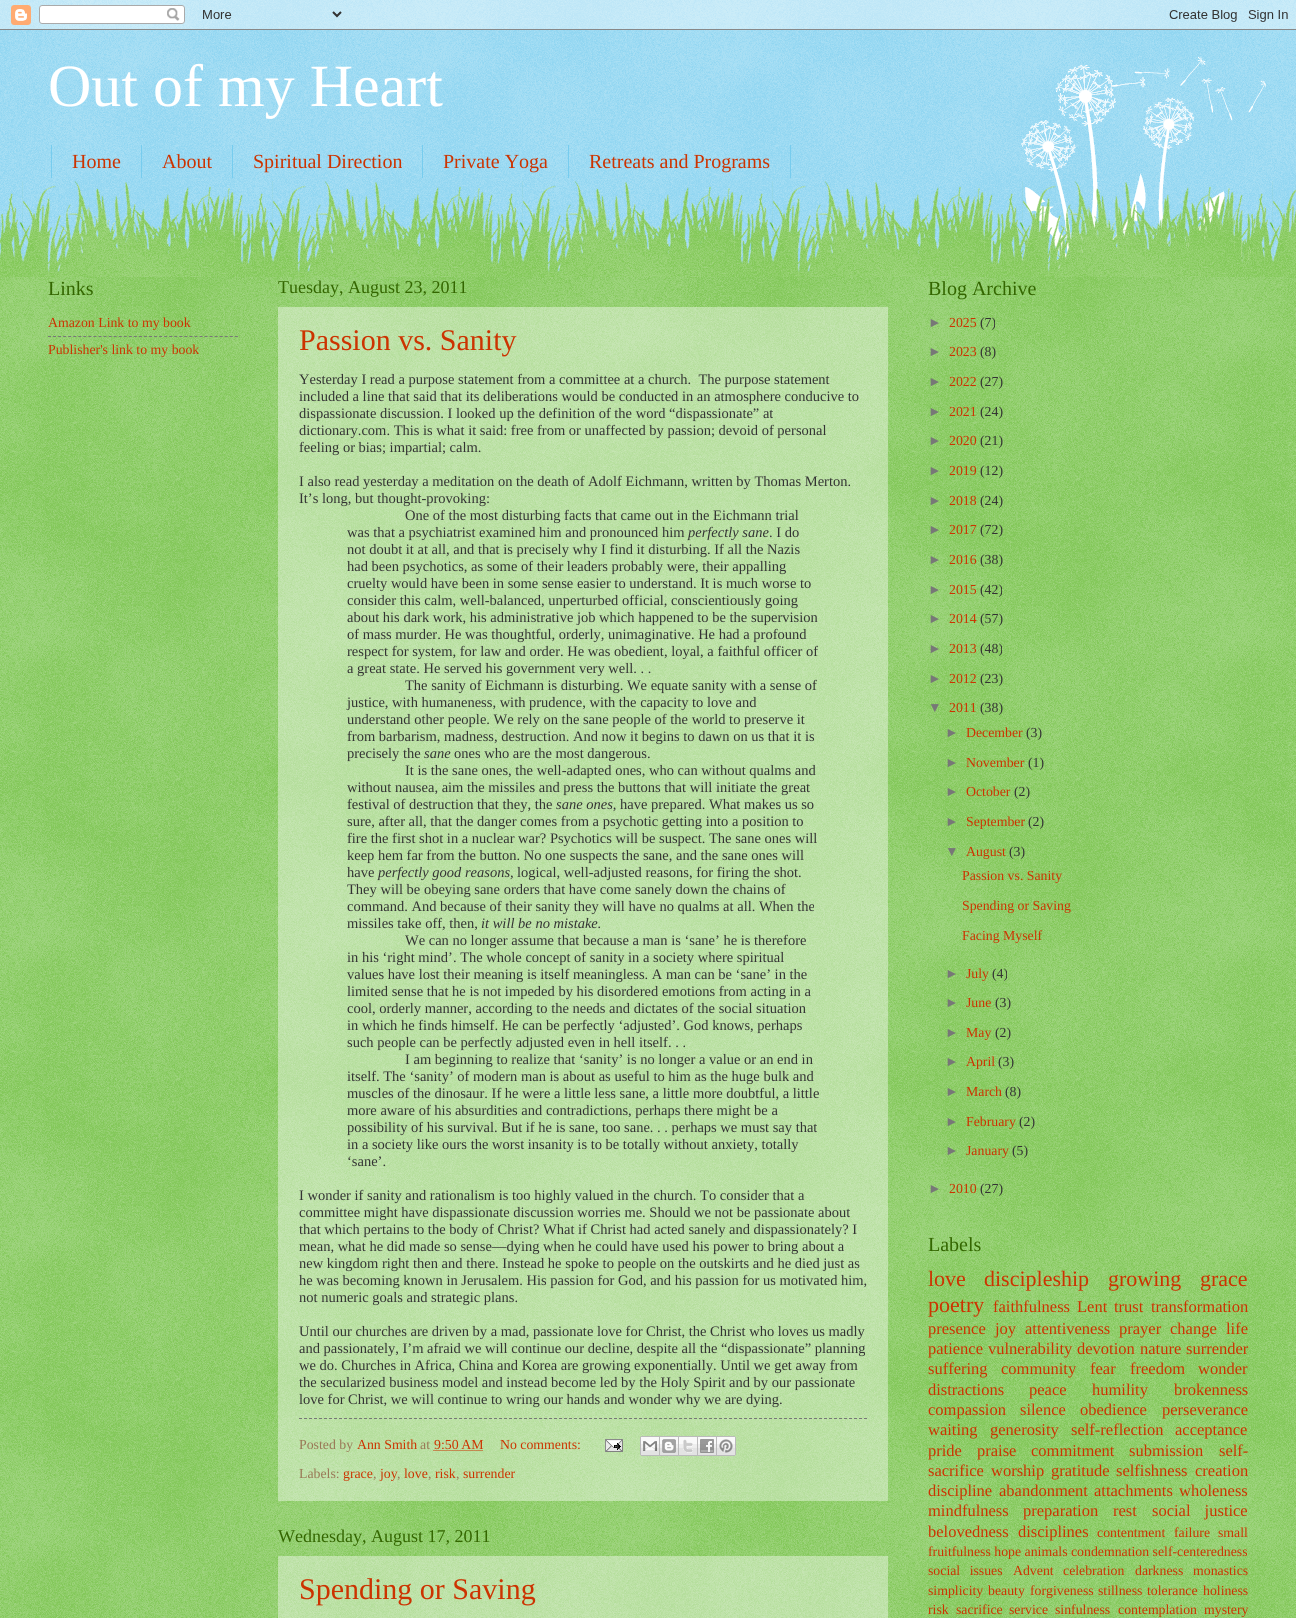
import math
import cairo

surface = cairo.ImageSurface(cairo.FORMAT_RGB24, 1296, 1618)
ctx = cairo.Context(surface)
options = cairo.FontOptions()
options.set_hint_metrics(cairo.HINT_METRICS_OFF)
options.set_hint_style(cairo.HINT_STYLE_NONE)
ctx.set_font_options(options)
ctx.set_miter_limit(4)


def spaced_text(x, y, s, letter, word):
    ctx.move_to(x, y)
    for ch in s:
        ctx.show_text(ch)
        ctx.rel_move_to(letter + word * (ch == ' '), 0)


def picture(path, x, y, w, h):
    ctx.save()
    ctx.set_source_surface(cairo.ImageSurface.create_from_png(path), x, y)
    ctx.rectangle(x, y, w, h)
    ctx.fill()
    ctx.restore()


ctx.set_source_rgb(0.467, 0.8, 0.933)
ctx.paint()
picture("img1.png", 0, 0, 1296, 272)
picture("img2.png", 0, 0, 1296, 30)
ctx.select_font_face("Liberation Serif")
ctx.set_font_size(60)
ctx.set_source_rgb(1, 1, 1)
ctx.move_to(48, 106)
ctx.show_text("Out of my Heart")
ctx.set_source_rgb(0.467, 0.8, 0.933)
ctx.rectangle(141, 145, 1, 33)
ctx.fill()
ctx.rectangle(51, 145, 1, 33)
ctx.fill()
ctx.set_font_size(20)
ctx.set_source_rgb(0.8, 0.2, 0)
ctx.move_to(72, 168)
ctx.show_text("Home")
ctx.set_source_rgb(0.467, 0.8, 0.933)
ctx.rectangle(232, 145, 1, 33)
ctx.fill()
ctx.set_source_rgb(0.8, 0.2, 0)
ctx.move_to(162, 168)
ctx.show_text("About")
ctx.set_source_rgb(0.467, 0.8, 0.933)
ctx.rectangle(422, 145, 1, 33)
ctx.fill()
ctx.set_source_rgb(0.8, 0.2, 0)
ctx.move_to(253, 168)
ctx.show_text("Spiritual Direction")
ctx.set_source_rgb(0.467, 0.8, 0.933)
ctx.rectangle(568, 145, 1, 33)
ctx.fill()
ctx.set_source_rgb(0.8, 0.2, 0)
ctx.move_to(443, 168)
ctx.show_text("Private Yoga")
ctx.set_source_rgb(0.467, 0.8, 0.933)
ctx.rectangle(790, 145, 1, 33)
ctx.fill()
ctx.set_source_rgb(0.8, 0.2, 0)
ctx.move_to(589, 168)
ctx.show_text("Retreats and Programs")
ctx.set_source_rgb(0.4, 0.733, 0.2)
ctx.rectangle(0, 277, 1296, 1341)
ctx.fill()
picture("img3.png", 0, 277, 1296, 1341)
picture("img4.png", 1016, 57, 250, 215)
picture("img5.png", 0, 181, 1296, 96)
ctx.set_source_rgb(0.2, 0.4, 0)
ctx.move_to(48, 295)
ctx.show_text("Links")
ctx.set_font_size(13.8)
ctx.set_source_rgb(0.8, 0.2, 0)
ctx.move_to(48, 327)
ctx.show_text("Amazon Link to my book")
ctx.new_path()
ctx.move_to(48, 336.5)
ctx.line_to(238, 336.5)
ctx.set_source_rgb(0.467, 0.467, 0.467)
ctx.set_line_width(1)
ctx.set_dash([3, 2.05])
ctx.stroke()
ctx.set_source_rgb(0.8, 0.2, 0)
ctx.move_to(48, 354)
ctx.show_text("Publisher's link to my book")
ctx.set_font_size(18)
ctx.set_source_rgb(0.2, 0.4, 0)
ctx.move_to(278, 293)
ctx.show_text("Tuesday, August 23, 2011")
ctx.set_source_rgba(1, 1, 1, 0.4)
ctx.rectangle(278, 307, 610, 1194)
ctx.fill()
ctx.set_font_size(30)
ctx.set_source_rgb(0.8, 0.2, 0)
ctx.move_to(299, 350)
ctx.show_text("Passion vs. Sanity")
ctx.set_font_size(14.5)
ctx.set_source_rgb(0.2, 0.2, 0.2)
ctx.move_to(299, 384)
ctx.show_text("Yesterday I read a purpose statement from a committee at a church.  The purpose statement")
ctx.move_to(299, 401)
ctx.show_text("included a line that said that its deliberations would be conducted in an atmosphere conducive to")
ctx.move_to(299, 418)
ctx.show_text("dispassionate discussion. I looked up the definition of the word “dispassionate” at")
ctx.move_to(299, 435)
ctx.show_text("dictionary.com. This is what it said: free from or unaffected by passion; devoid of personal")
ctx.move_to(299, 452)
ctx.show_text("feeling or bias; impartial; calm.")
ctx.move_to(299, 486)
ctx.show_text("I also read yesterday a meditation on the death of Adolf Eichmann, written by Thomas Merton.")
ctx.move_to(299, 503)
ctx.show_text("It’s long, but thought-provoking:")
ctx.move_to(405, 520)
ctx.show_text("One of the most disturbing facts that came out in the Eichmann trial")
ctx.move_to(347, 537)
ctx.show_text("was that a psychiatrist examined him and pronounced him")
ctx.select_font_face("Liberation Serif", cairo.FONT_SLANT_ITALIC)
ctx.move_to(688, 537)
ctx.show_text("perfectly sane")
ctx.select_font_face("Liberation Serif")
ctx.move_to(769, 537)
ctx.show_text(". I do")
ctx.move_to(347, 554)
ctx.show_text("not doubt it at all, and that is precisely why I find it disturbing. If all the Nazis")
ctx.move_to(347, 571)
ctx.show_text("had been psychotics, as some of their leaders probably were, their appalling")
ctx.move_to(347, 588)
ctx.show_text("cruelty would have been in some sense easier to understand. It is much worse to")
ctx.move_to(347, 605)
ctx.show_text("consider this calm, well-balanced, unperturbed official, conscientiously going")
ctx.move_to(347, 622)
ctx.show_text("about his dark work, his administrative job which happened to be the supervision")
ctx.move_to(347, 639)
ctx.show_text("of mass murder. He was thoughtful, orderly, unimaginative. He had a profound")
ctx.move_to(347, 656)
ctx.show_text("respect for system, for law and order. He was obedient, loyal, a faithful officer of")
ctx.move_to(347, 673)
ctx.show_text("a great state. He served his government very well. . .")
ctx.move_to(405, 690)
ctx.show_text("The sanity of Eichmann is disturbing. We equate sanity with a sense of")
ctx.move_to(347, 707)
ctx.show_text("justice, with humaneness, with prudence, with the capacity to love and")
ctx.move_to(347, 724)
ctx.show_text("understand other people. We rely on the sane people of the world to preserve it")
ctx.move_to(347, 741)
ctx.show_text("from barbarism, madness, destruction. And now it begins to dawn on us that it is")
ctx.move_to(347, 758)
ctx.show_text("precisely the")
ctx.select_font_face("Liberation Serif", cairo.FONT_SLANT_ITALIC)
ctx.move_to(424, 758)
ctx.show_text("sane")
ctx.select_font_face("Liberation Serif")
ctx.move_to(454, 758)
ctx.show_text("ones who are the most dangerous.")
ctx.move_to(405, 775)
ctx.show_text("It is the sane ones, the well-adapted ones, who can without qualms and")
ctx.move_to(347, 792)
ctx.show_text("without nausea, aim the missiles and press the buttons that will initiate the great")
ctx.move_to(347, 809)
ctx.show_text("festival of destruction that they, the")
ctx.select_font_face("Liberation Serif", cairo.FONT_SLANT_ITALIC)
ctx.move_to(556, 809)
ctx.show_text("sane ones,")
ctx.select_font_face("Liberation Serif")
ctx.move_to(620, 809)
ctx.show_text("have prepared. What makes us so")
ctx.move_to(347, 826)
ctx.show_text("sure, after all, that the danger comes from a psychotic getting into a position to")
ctx.move_to(347, 843)
ctx.show_text("fire the first shot in a nuclear war? Psychotics will be suspect. The sane ones will")
ctx.move_to(347, 860)
ctx.show_text("keep hem far from the button. No one suspects the sane, and the sane ones will")
ctx.move_to(347, 877)
ctx.show_text("have")
ctx.select_font_face("Liberation Serif", cairo.FONT_SLANT_ITALIC)
ctx.move_to(378, 877)
ctx.show_text("perfectly good reasons,")
ctx.select_font_face("Liberation Serif")
ctx.move_to(517, 877)
ctx.show_text("logical, well-adjusted reasons, for firing the shot.")
ctx.move_to(347, 894)
ctx.show_text("They will be obeying sane orders that have come sanely down the chains of")
ctx.move_to(347, 911)
ctx.show_text("command. And because of their sanity they will have no qualms at all. When the")
ctx.move_to(347, 928)
ctx.show_text("missiles take off, then,")
ctx.select_font_face("Liberation Serif", cairo.FONT_SLANT_ITALIC)
ctx.move_to(481, 928)
ctx.show_text("it will be no mistake.")
ctx.select_font_face("Liberation Serif")
ctx.move_to(405, 945)
ctx.show_text("We can no longer assume that because a man is ‘sane’ he is therefore")
ctx.move_to(347, 962)
ctx.show_text("in his ‘right mind’. The whole concept of sanity in a society where spiritual")
ctx.move_to(347, 979)
ctx.show_text("values have lost their meaning is itself meaningless. A man can be ‘sane’ in the")
ctx.move_to(347, 996)
ctx.show_text("limited sense that he is not impeded by his disordered emotions from acting in a")
ctx.move_to(347, 1013)
ctx.show_text("cool, orderly manner, according to the needs and dictates of the social situation")
ctx.move_to(347, 1030)
ctx.show_text("in which he finds himself. He can be perfectly ‘adjusted’. God knows, perhaps")
ctx.move_to(347, 1047)
ctx.show_text("such people can be perfectly adjusted even in hell itself. . .")
ctx.move_to(405, 1064)
ctx.show_text("I am beginning to realize that ‘sanity’ is no longer a value or an end in")
ctx.move_to(347, 1081)
ctx.show_text("itself. The ‘sanity’ of modern man is about as useful to him as the huge bulk and")
ctx.move_to(347, 1098)
ctx.show_text("muscles of the dinosaur. If he were a little less sane, a little more doubtful, a little")
ctx.move_to(347, 1115)
ctx.show_text("more aware of his absurdities and contradictions, perhaps there might be a")
ctx.move_to(347, 1132)
ctx.show_text("possibility of his survival. But if he is sane, too sane. . . perhaps we must say that")
ctx.move_to(347, 1149)
ctx.show_text("in a society like ours the worst insanity is to be totally without anxiety, totally")
ctx.move_to(347, 1166)
ctx.show_text("‘sane’.")
ctx.move_to(299, 1200)
ctx.show_text("I wonder if sanity and rationalism is too highly valued in the church. To consider that a")
ctx.move_to(299, 1217)
ctx.show_text("committee might have dispassionate discussion worries me. Should we not be passionate about")
ctx.move_to(299, 1234)
ctx.show_text("that which pertains to the body of Christ? What if Christ had acted sanely and dispassionately? I")
ctx.move_to(299, 1251)
ctx.show_text("mean, what he did made so sense—dying when he could have used his power to bring about a")
ctx.move_to(299, 1268)
ctx.show_text("new kingdom right then and there. Instead he spoke to people on the outskirts and he died just as")
ctx.move_to(299, 1285)
ctx.show_text("he was becoming known in Jerusalem. His passion for God, and his passion for us motivated him,")
ctx.move_to(299, 1302)
ctx.show_text("not numeric goals and strategic plans.")
ctx.move_to(299, 1336)
ctx.show_text("Until our churches are driven by a mad, passionate love for Christ, the Christ who loves us madly")
ctx.move_to(299, 1353)
ctx.show_text("and passionately, I’m afraid we will continue our decline, despite all the “dispassionate” planning")
ctx.move_to(299, 1370)
ctx.show_text("we do. Churches in Africa, China and Korea are growing exponentially. Until we get away from")
ctx.move_to(299, 1387)
ctx.show_text("the secularized business model and instead become led by the Holy Spirit and by our passionate")
ctx.move_to(299, 1404)
ctx.show_text("love for Christ, we will continue to wring our hands and wonder why we are dying.")
ctx.new_path()
ctx.move_to(299, 1418.5)
ctx.line_to(867, 1418.5)
ctx.set_source_rgb(0.467, 0.467, 0.467)
ctx.set_dash([3, 2])
ctx.stroke()
ctx.set_font_size(13.8)
ctx.set_source_rgb(0.6, 0.467, 0.333)
ctx.move_to(299, 1449)
ctx.show_text("Posted by")
ctx.set_source_rgb(0.8, 0.2, 0)
ctx.move_to(357, 1449)
ctx.show_text("Ann Smith")
ctx.set_source_rgb(0.6, 0.467, 0.333)
ctx.move_to(420, 1449)
ctx.show_text("at")
ctx.new_path()
ctx.move_to(433.5, 1450.5)
ctx.line_to(483, 1450.5)
ctx.set_source_rgb(0.8, 0.2, 0)
ctx.set_dash([1, 1])
ctx.stroke()
ctx.move_to(434, 1449)
ctx.show_text("9:50 AM")
ctx.move_to(500, 1449)
ctx.show_text("No comments:")
picture("img6.png", 605, 1439, 18, 13)
picture("img7.png", 640, 1436, 20, 20)
picture("img8.png", 660, 1436, 19, 20)
picture("img9.png", 679, 1436, 19, 20)
picture("img10.png", 698, 1436, 19, 20)
picture("img11.png", 717, 1436, 19, 20)
ctx.set_source_rgb(0.6, 0.467, 0.333)
ctx.move_to(299, 1478)
ctx.show_text("Labels:")
ctx.set_source_rgb(0.8, 0.2, 0)
ctx.move_to(343, 1478)
ctx.show_text("grace")
ctx.set_source_rgb(0.6, 0.467, 0.333)
ctx.move_to(373, 1478)
ctx.show_text(",")
ctx.set_source_rgb(0.8, 0.2, 0)
ctx.move_to(380, 1478)
ctx.show_text("joy")
ctx.set_source_rgb(0.6, 0.467, 0.333)
ctx.move_to(397, 1478)
ctx.show_text(",")
ctx.set_source_rgb(0.8, 0.2, 0)
ctx.move_to(404, 1478)
ctx.show_text("love")
ctx.set_source_rgb(0.6, 0.467, 0.333)
ctx.move_to(428, 1478)
ctx.show_text(",")
ctx.set_source_rgb(0.8, 0.2, 0)
ctx.move_to(435, 1478)
ctx.show_text("risk")
ctx.set_source_rgb(0.6, 0.467, 0.333)
ctx.move_to(456, 1478)
ctx.show_text(",")
ctx.set_source_rgb(0.8, 0.2, 0)
ctx.move_to(463, 1478)
ctx.show_text("surrender")
ctx.set_font_size(18)
ctx.set_source_rgb(0.2, 0.4, 0)
ctx.move_to(278, 1542)
ctx.show_text("Wednesday, August 17, 2011")
ctx.set_source_rgba(1, 1, 1, 0.4)
ctx.rectangle(278, 1556, 610, 62)
ctx.fill()
ctx.set_font_size(30)
ctx.set_source_rgb(0.8, 0.2, 0)
ctx.move_to(299, 1599)
ctx.show_text("Spending or Saving")
ctx.set_font_size(20)
ctx.set_source_rgb(0.2, 0.4, 0)
ctx.move_to(928, 295)
ctx.show_text("Blog Archive")
ctx.select_font_face("Liberation Sans")
ctx.set_font_size(13.8)
ctx.set_source_rgb(0.467, 0.467, 0.467)
ctx.move_to(928, 327)
ctx.show_text("►")
ctx.select_font_face("Liberation Serif")
ctx.set_source_rgb(0.8, 0.2, 0)
ctx.move_to(949, 327)
ctx.show_text("2025")
ctx.set_source_rgb(0.2, 0.2, 0.2)
ctx.move_to(980, 327)
ctx.show_text("(7)")
ctx.select_font_face("Liberation Sans")
ctx.set_source_rgb(0.467, 0.467, 0.467)
ctx.move_to(928, 356)
ctx.show_text("►")
ctx.select_font_face("Liberation Serif")
ctx.set_source_rgb(0.8, 0.2, 0)
ctx.move_to(949, 356)
ctx.show_text("2023")
ctx.set_source_rgb(0.2, 0.2, 0.2)
ctx.move_to(980, 356)
ctx.show_text("(8)")
ctx.select_font_face("Liberation Sans")
ctx.set_source_rgb(0.467, 0.467, 0.467)
ctx.move_to(928, 386)
ctx.show_text("►")
ctx.select_font_face("Liberation Serif")
ctx.set_source_rgb(0.8, 0.2, 0)
ctx.move_to(949, 386)
ctx.show_text("2022")
ctx.set_source_rgb(0.2, 0.2, 0.2)
ctx.move_to(980, 386)
ctx.show_text("(27)")
ctx.select_font_face("Liberation Sans")
ctx.set_source_rgb(0.467, 0.467, 0.467)
ctx.move_to(928, 416)
ctx.show_text("►")
ctx.select_font_face("Liberation Serif")
ctx.set_source_rgb(0.8, 0.2, 0)
ctx.move_to(949, 416)
ctx.show_text("2021")
ctx.set_source_rgb(0.2, 0.2, 0.2)
ctx.move_to(980, 416)
ctx.show_text("(24)")
ctx.select_font_face("Liberation Sans")
ctx.set_source_rgb(0.467, 0.467, 0.467)
ctx.move_to(928, 445)
ctx.show_text("►")
ctx.select_font_face("Liberation Serif")
ctx.set_source_rgb(0.8, 0.2, 0)
ctx.move_to(949, 445)
ctx.show_text("2020")
ctx.set_source_rgb(0.2, 0.2, 0.2)
ctx.move_to(980, 445)
ctx.show_text("(21)")
ctx.select_font_face("Liberation Sans")
ctx.set_source_rgb(0.467, 0.467, 0.467)
ctx.move_to(928, 475)
ctx.show_text("►")
ctx.select_font_face("Liberation Serif")
ctx.set_source_rgb(0.8, 0.2, 0)
ctx.move_to(949, 475)
ctx.show_text("2019")
ctx.set_source_rgb(0.2, 0.2, 0.2)
ctx.move_to(980, 475)
ctx.show_text("(12)")
ctx.select_font_face("Liberation Sans")
ctx.set_source_rgb(0.467, 0.467, 0.467)
ctx.move_to(928, 505)
ctx.show_text("►")
ctx.select_font_face("Liberation Serif")
ctx.set_source_rgb(0.8, 0.2, 0)
ctx.move_to(949, 505)
ctx.show_text("2018")
ctx.set_source_rgb(0.2, 0.2, 0.2)
ctx.move_to(980, 505)
ctx.show_text("(24)")
ctx.select_font_face("Liberation Sans")
ctx.set_source_rgb(0.467, 0.467, 0.467)
ctx.move_to(928, 534)
ctx.show_text("►")
ctx.select_font_face("Liberation Serif")
ctx.set_source_rgb(0.8, 0.2, 0)
ctx.move_to(949, 534)
ctx.show_text("2017")
ctx.set_source_rgb(0.2, 0.2, 0.2)
ctx.move_to(980, 534)
ctx.show_text("(72)")
ctx.select_font_face("Liberation Sans")
ctx.set_source_rgb(0.467, 0.467, 0.467)
ctx.move_to(928, 564)
ctx.show_text("►")
ctx.select_font_face("Liberation Serif")
ctx.set_source_rgb(0.8, 0.2, 0)
ctx.move_to(949, 564)
ctx.show_text("2016")
ctx.set_source_rgb(0.2, 0.2, 0.2)
ctx.move_to(980, 564)
ctx.show_text("(38)")
ctx.select_font_face("Liberation Sans")
ctx.set_source_rgb(0.467, 0.467, 0.467)
ctx.move_to(928, 594)
ctx.show_text("►")
ctx.select_font_face("Liberation Serif")
ctx.set_source_rgb(0.8, 0.2, 0)
ctx.move_to(949, 594)
ctx.show_text("2015")
ctx.set_source_rgb(0.2, 0.2, 0.2)
ctx.move_to(980, 594)
ctx.show_text("(42)")
ctx.select_font_face("Liberation Sans")
ctx.set_source_rgb(0.467, 0.467, 0.467)
ctx.move_to(928, 623)
ctx.show_text("►")
ctx.select_font_face("Liberation Serif")
ctx.set_source_rgb(0.8, 0.2, 0)
ctx.move_to(949, 623)
ctx.show_text("2014")
ctx.set_source_rgb(0.2, 0.2, 0.2)
ctx.move_to(980, 623)
ctx.show_text("(57)")
ctx.select_font_face("Liberation Sans")
ctx.set_source_rgb(0.467, 0.467, 0.467)
ctx.move_to(928, 653)
ctx.show_text("►")
ctx.select_font_face("Liberation Serif")
ctx.set_source_rgb(0.8, 0.2, 0)
ctx.move_to(949, 653)
ctx.show_text("2013")
ctx.set_source_rgb(0.2, 0.2, 0.2)
ctx.move_to(980, 653)
ctx.show_text("(48)")
ctx.select_font_face("Liberation Sans")
ctx.set_source_rgb(0.467, 0.467, 0.467)
ctx.move_to(928, 683)
ctx.show_text("►")
ctx.select_font_face("Liberation Serif")
ctx.set_source_rgb(0.8, 0.2, 0)
ctx.move_to(949, 683)
ctx.show_text("2012")
ctx.set_source_rgb(0.2, 0.2, 0.2)
ctx.move_to(980, 683)
ctx.show_text("(23)")
ctx.select_font_face("Liberation Sans")
ctx.set_source_rgb(0.467, 0.467, 0.467)
ctx.move_to(928, 712)
ctx.show_text("▼")
ctx.select_font_face("Liberation Serif")
ctx.set_source_rgb(0.8, 0.2, 0)
ctx.move_to(949, 712)
ctx.show_text("2011")
ctx.set_source_rgb(0.2, 0.2, 0.2)
ctx.move_to(980, 712)
ctx.show_text("(38)")
ctx.select_font_face("Liberation Sans")
ctx.set_source_rgb(0.467, 0.467, 0.467)
ctx.move_to(945, 737)
ctx.show_text("►")
ctx.select_font_face("Liberation Serif")
ctx.set_source_rgb(0.8, 0.2, 0)
ctx.move_to(966, 737)
ctx.show_text("December")
ctx.set_source_rgb(0.2, 0.2, 0.2)
ctx.move_to(1026, 737)
ctx.show_text("(3)")
ctx.select_font_face("Liberation Sans")
ctx.set_source_rgb(0.467, 0.467, 0.467)
ctx.move_to(945, 767)
ctx.show_text("►")
ctx.select_font_face("Liberation Serif")
ctx.set_source_rgb(0.8, 0.2, 0)
ctx.move_to(966, 767)
ctx.show_text("November")
ctx.set_source_rgb(0.2, 0.2, 0.2)
ctx.move_to(1028, 767)
ctx.show_text("(1)")
ctx.select_font_face("Liberation Sans")
ctx.set_source_rgb(0.467, 0.467, 0.467)
ctx.move_to(945, 796)
ctx.show_text("►")
ctx.select_font_face("Liberation Serif")
ctx.set_source_rgb(0.8, 0.2, 0)
ctx.move_to(966, 796)
ctx.show_text("October")
ctx.set_source_rgb(0.2, 0.2, 0.2)
ctx.move_to(1014, 796)
ctx.show_text("(2)")
ctx.select_font_face("Liberation Sans")
ctx.set_source_rgb(0.467, 0.467, 0.467)
ctx.move_to(945, 826)
ctx.show_text("►")
ctx.select_font_face("Liberation Serif")
ctx.set_source_rgb(0.8, 0.2, 0)
ctx.move_to(966, 826)
ctx.show_text("September")
ctx.set_source_rgb(0.2, 0.2, 0.2)
ctx.move_to(1028, 826)
ctx.show_text("(2)")
ctx.select_font_face("Liberation Sans")
ctx.set_source_rgb(0.467, 0.467, 0.467)
ctx.move_to(945, 856)
ctx.show_text("▼")
ctx.select_font_face("Liberation Serif")
ctx.set_source_rgb(0.8, 0.2, 0)
ctx.move_to(966, 856)
ctx.show_text("August")
ctx.set_source_rgb(0.2, 0.2, 0.2)
ctx.move_to(1009, 856)
ctx.show_text("(3)")
ctx.set_source_rgb(0.8, 0.2, 0)
ctx.move_to(962, 880)
ctx.show_text("Passion vs. Sanity")
ctx.move_to(962, 910)
ctx.show_text("Spending or Saving")
ctx.move_to(962, 940)
ctx.show_text("Facing Myself")
ctx.select_font_face("Liberation Sans")
ctx.set_source_rgb(0.467, 0.467, 0.467)
ctx.move_to(945, 978)
ctx.show_text("►")
ctx.select_font_face("Liberation Serif")
ctx.set_source_rgb(0.8, 0.2, 0)
ctx.move_to(966, 978)
ctx.show_text("July")
ctx.set_source_rgb(0.2, 0.2, 0.2)
ctx.move_to(992, 978)
ctx.show_text("(4)")
ctx.select_font_face("Liberation Sans")
ctx.set_source_rgb(0.467, 0.467, 0.467)
ctx.move_to(945, 1007)
ctx.show_text("►")
ctx.select_font_face("Liberation Serif")
ctx.set_source_rgb(0.8, 0.2, 0)
ctx.move_to(966, 1007)
ctx.show_text("June")
ctx.set_source_rgb(0.2, 0.2, 0.2)
ctx.move_to(995, 1007)
ctx.show_text("(3)")
ctx.select_font_face("Liberation Sans")
ctx.set_source_rgb(0.467, 0.467, 0.467)
ctx.move_to(945, 1037)
ctx.show_text("►")
ctx.select_font_face("Liberation Serif")
ctx.set_source_rgb(0.8, 0.2, 0)
ctx.move_to(966, 1037)
ctx.show_text("May")
ctx.set_source_rgb(0.2, 0.2, 0.2)
ctx.move_to(995, 1037)
ctx.show_text("(2)")
ctx.select_font_face("Liberation Sans")
ctx.set_source_rgb(0.467, 0.467, 0.467)
ctx.move_to(945, 1066)
ctx.show_text("►")
ctx.select_font_face("Liberation Serif")
ctx.set_source_rgb(0.8, 0.2, 0)
ctx.move_to(966, 1066)
ctx.show_text("April")
ctx.set_source_rgb(0.2, 0.2, 0.2)
ctx.move_to(998, 1066)
ctx.show_text("(3)")
ctx.select_font_face("Liberation Sans")
ctx.set_source_rgb(0.467, 0.467, 0.467)
ctx.move_to(945, 1096)
ctx.show_text("►")
ctx.select_font_face("Liberation Serif")
ctx.set_source_rgb(0.8, 0.2, 0)
ctx.move_to(966, 1096)
ctx.show_text("March")
ctx.set_source_rgb(0.2, 0.2, 0.2)
ctx.move_to(1005, 1096)
ctx.show_text("(8)")
ctx.select_font_face("Liberation Sans")
ctx.set_source_rgb(0.467, 0.467, 0.467)
ctx.move_to(945, 1126)
ctx.show_text("►")
ctx.select_font_face("Liberation Serif")
ctx.set_source_rgb(0.8, 0.2, 0)
ctx.move_to(966, 1126)
ctx.show_text("February")
ctx.set_source_rgb(0.2, 0.2, 0.2)
ctx.move_to(1019, 1126)
ctx.show_text("(2)")
ctx.select_font_face("Liberation Sans")
ctx.set_source_rgb(0.467, 0.467, 0.467)
ctx.move_to(945, 1155)
ctx.show_text("►")
ctx.select_font_face("Liberation Serif")
ctx.set_source_rgb(0.8, 0.2, 0)
ctx.move_to(966, 1155)
ctx.show_text("January")
ctx.set_source_rgb(0.2, 0.2, 0.2)
ctx.move_to(1012, 1155)
ctx.show_text("(5)")
ctx.select_font_face("Liberation Sans")
ctx.set_source_rgb(0.467, 0.467, 0.467)
ctx.move_to(928, 1193)
ctx.show_text("►")
ctx.select_font_face("Liberation Serif")
ctx.set_source_rgb(0.8, 0.2, 0)
ctx.move_to(949, 1193)
ctx.show_text("2010")
ctx.set_source_rgb(0.2, 0.2, 0.2)
ctx.move_to(980, 1193)
ctx.show_text("(27)")
ctx.set_font_size(20)
ctx.set_source_rgb(0.2, 0.4, 0)
ctx.move_to(928, 1251)
ctx.show_text("Labels")
ctx.set_font_size(22)
ctx.set_source_rgb(0.8, 0.2, 0)
ctx.move_to(928, 1286)
ctx.show_text("love")
ctx.move_to(984, 1286)
ctx.show_text("discipleship")
ctx.move_to(1108, 1286)
ctx.show_text("growing")
ctx.move_to(1200, 1286)
ctx.show_text("grace")
ctx.move_to(928, 1312)
ctx.show_text("poetry")
ctx.set_font_size(16.5)
ctx.move_to(993, 1312)
ctx.show_text("faithfulness")
ctx.move_to(1077, 1312)
ctx.show_text("Lent")
ctx.move_to(1114, 1312)
ctx.show_text("trust")
ctx.move_to(1151, 1312)
ctx.show_text("transformation")
ctx.move_to(928, 1334)
ctx.show_text("presence")
ctx.move_to(995, 1334)
ctx.show_text("joy")
ctx.move_to(1025, 1334)
ctx.show_text("attentiveness")
ctx.move_to(1119, 1334)
ctx.show_text("prayer")
ctx.move_to(1170, 1334)
ctx.show_text("change")
ctx.move_to(1226, 1334)
ctx.show_text("life")
ctx.move_to(928, 1354)
ctx.show_text("patience")
ctx.move_to(988, 1354)
ctx.show_text("vulnerability")
ctx.move_to(1077, 1354)
ctx.show_text("devotion")
ctx.move_to(1140, 1354)
ctx.show_text("nature")
ctx.move_to(1186, 1354)
ctx.show_text("surrender")
ctx.move_to(928, 1374)
ctx.show_text("suffering")
ctx.move_to(1001, 1374)
ctx.show_text("community")
ctx.move_to(1090, 1374)
ctx.show_text("fear")
ctx.move_to(1130, 1374)
ctx.show_text("freedom")
ctx.move_to(1198, 1374)
ctx.show_text("wonder")
ctx.move_to(928, 1395)
ctx.show_text("distractions")
ctx.move_to(1029, 1395)
ctx.show_text("peace")
ctx.move_to(1092, 1395)
ctx.show_text("humility")
ctx.move_to(1174, 1395)
ctx.show_text("brokenness")
ctx.move_to(928, 1415)
ctx.show_text("compassion")
ctx.move_to(1020, 1415)
ctx.show_text("silence")
ctx.move_to(1080, 1415)
ctx.show_text("obedience")
ctx.move_to(1162, 1415)
ctx.show_text("perseverance")
ctx.move_to(928, 1435)
ctx.show_text("waiting")
ctx.move_to(990, 1435)
ctx.show_text("generosity")
ctx.move_to(1071, 1435)
ctx.show_text("self-reflection")
ctx.move_to(1175, 1435)
ctx.show_text("acceptance")
ctx.move_to(928, 1456)
ctx.show_text("pride")
ctx.move_to(977, 1456)
ctx.show_text("praise")
ctx.move_to(1031, 1456)
ctx.show_text("commitment")
ctx.move_to(1129, 1456)
ctx.show_text("submission")
ctx.move_to(1219, 1456)
ctx.show_text("self-")
ctx.move_to(928, 1476)
ctx.show_text("sacrifice")
ctx.move_to(991, 1476)
ctx.show_text("worship")
ctx.move_to(1051, 1476)
ctx.show_text("gratitude")
ctx.move_to(1116, 1476)
ctx.show_text("selfishness")
ctx.move_to(1195, 1476)
ctx.show_text("creation")
ctx.move_to(928, 1496)
ctx.show_text("discipline")
ctx.move_to(999, 1496)
ctx.show_text("abandonment")
ctx.move_to(1094, 1496)
ctx.show_text("attachments")
ctx.move_to(1179, 1496)
ctx.show_text("wholeness")
ctx.move_to(928, 1516)
ctx.show_text("mindfulness")
ctx.move_to(1023, 1516)
ctx.show_text("preparation")
ctx.move_to(1113, 1516)
ctx.show_text("rest")
spaced_text(1152, 1516, "social justice", 0, 10)
ctx.move_to(928, 1537)
ctx.show_text("belovedness")
ctx.move_to(1018, 1537)
ctx.show_text("disciplines")
ctx.set_font_size(13.8)
ctx.move_to(1097, 1537)
ctx.show_text("contentment")
ctx.move_to(1174, 1537)
ctx.show_text("failure")
ctx.move_to(1218, 1537)
ctx.show_text("small")
ctx.move_to(928, 1556)
ctx.show_text("fruitfulness hope animals condemnation self-centeredness")
spaced_text(928, 1575, "social issues", 0, 6)
ctx.move_to(1013, 1575)
ctx.show_text("Advent")
ctx.move_to(1063, 1575)
ctx.show_text("celebration")
ctx.move_to(1135, 1575)
ctx.show_text("darkness")
ctx.move_to(1193, 1575)
ctx.show_text("monastics")
ctx.move_to(928, 1595)
ctx.show_text("simplicity")
ctx.move_to(988, 1595)
ctx.show_text("beauty")
ctx.move_to(1030, 1595)
ctx.show_text("forgiveness")
ctx.move_to(1098, 1595)
ctx.show_text("stillness")
ctx.move_to(1147, 1595)
ctx.show_text("tolerance")
ctx.move_to(1203, 1595)
ctx.show_text("holiness")
ctx.move_to(928, 1614)
ctx.show_text("risk")
ctx.move_to(956, 1614)
ctx.show_text("sacrifice")
ctx.move_to(1009, 1614)
ctx.show_text("service")
ctx.move_to(1055, 1614)
ctx.show_text("sinfulness")
ctx.move_to(1118, 1614)
ctx.show_text("contemplation")
ctx.move_to(1204, 1614)
ctx.show_text("mystery")
surface.write_to_png("page.png")
